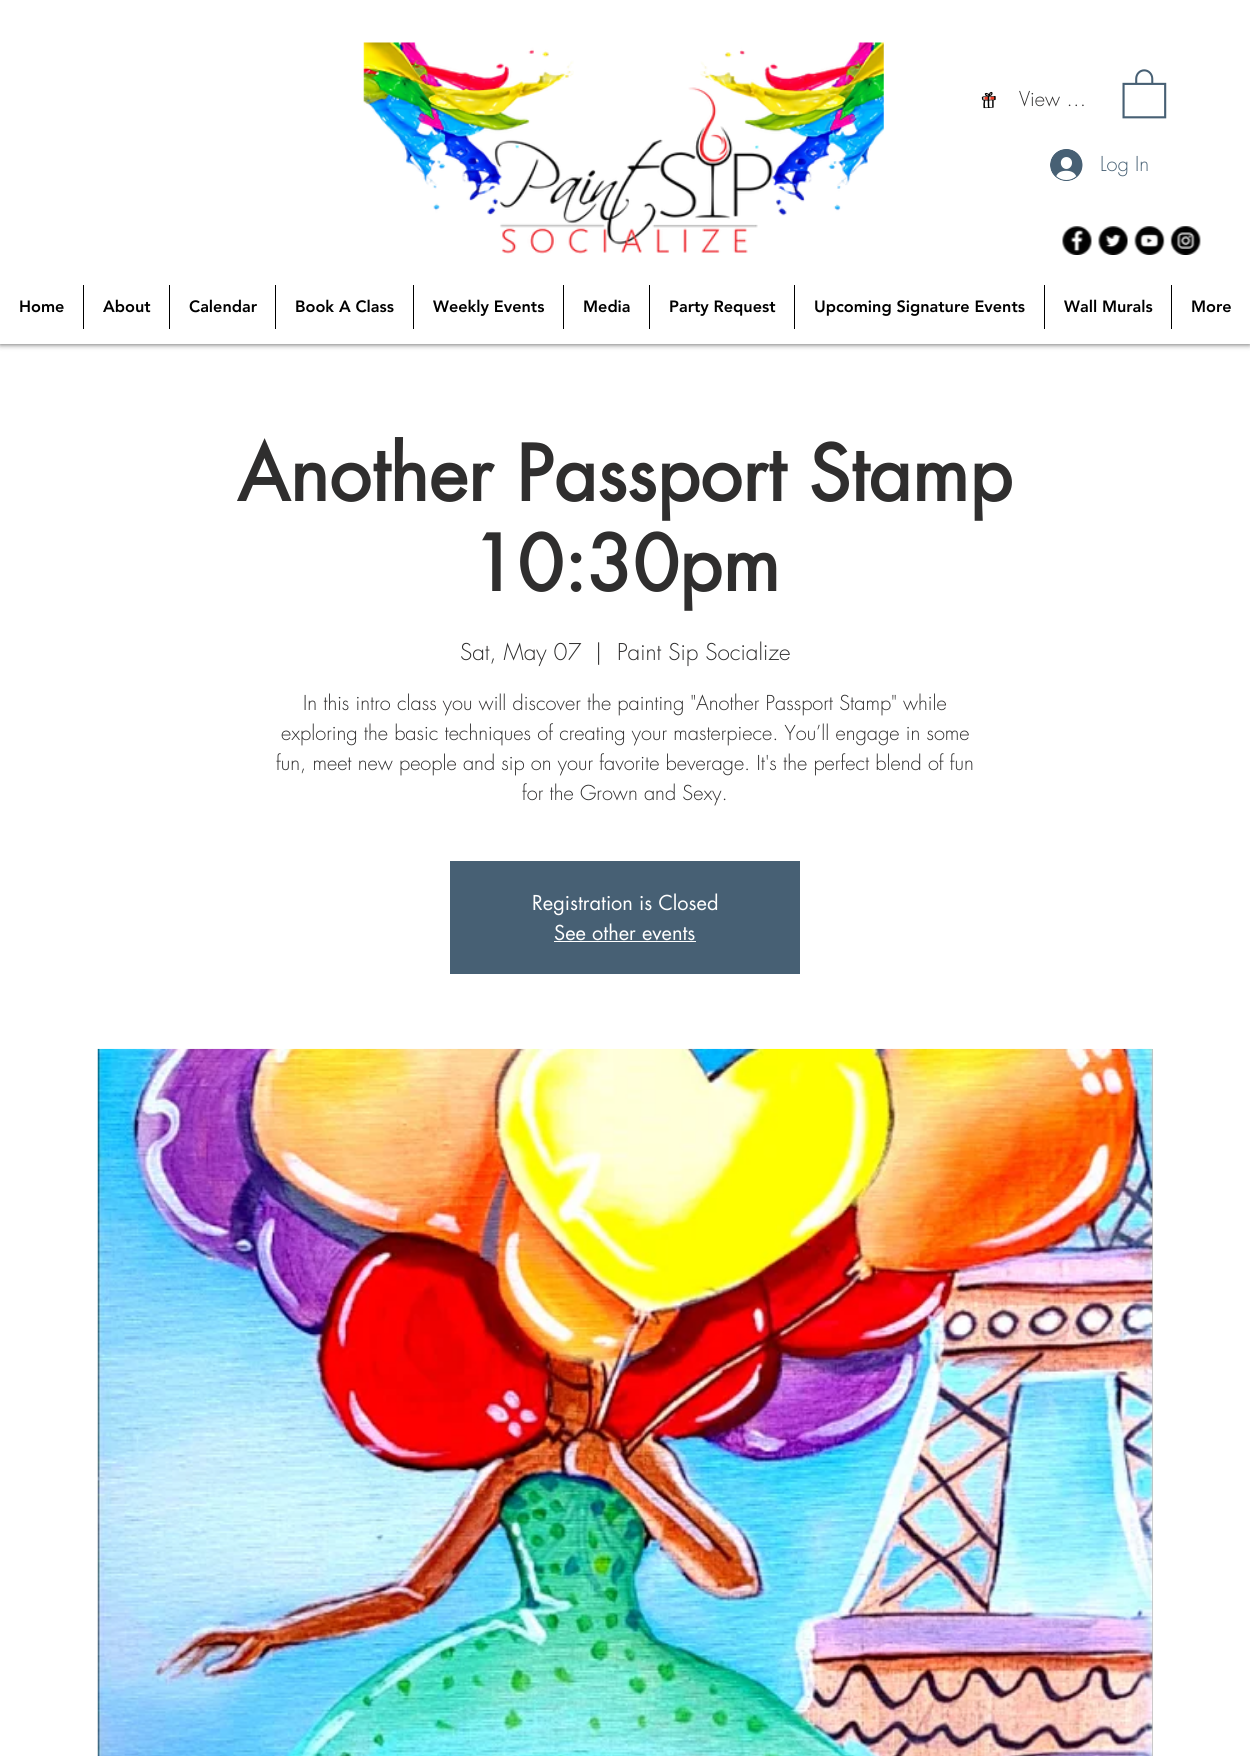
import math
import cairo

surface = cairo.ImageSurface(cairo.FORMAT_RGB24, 1250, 1756)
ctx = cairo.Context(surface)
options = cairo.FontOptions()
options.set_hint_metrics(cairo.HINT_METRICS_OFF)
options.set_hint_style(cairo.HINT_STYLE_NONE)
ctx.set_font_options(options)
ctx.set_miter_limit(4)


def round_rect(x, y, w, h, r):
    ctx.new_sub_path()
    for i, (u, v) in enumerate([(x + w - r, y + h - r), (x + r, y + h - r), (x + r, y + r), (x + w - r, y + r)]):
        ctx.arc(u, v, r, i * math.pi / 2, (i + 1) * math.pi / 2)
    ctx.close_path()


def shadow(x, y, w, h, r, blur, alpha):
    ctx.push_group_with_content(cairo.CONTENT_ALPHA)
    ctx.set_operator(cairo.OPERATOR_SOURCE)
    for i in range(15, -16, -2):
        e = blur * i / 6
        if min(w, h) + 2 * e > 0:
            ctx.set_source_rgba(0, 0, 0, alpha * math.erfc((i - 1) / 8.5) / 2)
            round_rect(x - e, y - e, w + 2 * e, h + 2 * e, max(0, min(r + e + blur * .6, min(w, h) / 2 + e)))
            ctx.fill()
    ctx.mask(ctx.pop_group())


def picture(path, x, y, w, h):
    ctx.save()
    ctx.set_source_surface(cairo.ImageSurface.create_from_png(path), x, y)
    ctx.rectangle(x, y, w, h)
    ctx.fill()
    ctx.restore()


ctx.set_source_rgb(1, 1, 1)
ctx.paint()
ctx.set_source_rgb(0, 0, 0)
shadow(0, 0, 1250, 344, 0, 3, 0.7)
ctx.set_source_rgb(1, 1, 1)
ctx.rectangle(0, 0, 1250, 344)
ctx.fill()
picture("img1.png", 363, 42, 521, 212)
picture("img2.png", 981, 91, 15, 18)
ctx.select_font_face("futura Light")
ctx.set_font_size(20)
ctx.set_source_rgb(0.184, 0.18, 0.18)
ctx.move_to(1019, 106)
ctx.show_text("View …")
picture("img3.png", 1122, 69, 45, 50)
picture("img4.png", 1050, 149, 33, 32)
ctx.set_source_rgb(0.278, 0.376, 0.455)
ctx.move_to(1100, 171)
ctx.show_text("Log In")
picture("img5.png", 1062, 226, 30, 29)
picture("img6.png", 1098, 226, 30, 29)
picture("img7.png", 1134, 226, 31, 29)
picture("img8.png", 1170, 226, 31, 29)
ctx.select_font_face("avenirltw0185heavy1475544 Black")
ctx.set_font_size(16.25)
ctx.set_source_rgb(0, 0, 0)
ctx.move_to(19, 312)
ctx.show_text("Home")
ctx.rectangle(83, 285, 1, 44)
ctx.fill()
ctx.move_to(103, 312)
ctx.show_text("About")
ctx.rectangle(169, 285, 1, 44)
ctx.fill()
ctx.move_to(189, 312)
ctx.show_text("Calendar")
ctx.rectangle(275, 285, 1, 44)
ctx.fill()
ctx.move_to(295, 312)
ctx.show_text("Book A Class")
ctx.rectangle(413, 285, 1, 44)
ctx.fill()
ctx.move_to(433, 312)
ctx.show_text("Weekly Events")
ctx.rectangle(563, 285, 1, 44)
ctx.fill()
ctx.move_to(583, 312)
ctx.show_text("Media")
ctx.rectangle(649, 285, 1, 44)
ctx.fill()
ctx.move_to(669, 312)
ctx.show_text("Party Request")
ctx.rectangle(794, 285, 1, 44)
ctx.fill()
ctx.move_to(814, 312)
ctx.show_text("Upcoming Signature Events")
ctx.rectangle(1044, 285, 1, 44)
ctx.fill()
ctx.move_to(1064, 312)
ctx.show_text("Wall Murals")
ctx.rectangle(1171, 285, 1, 44)
ctx.fill()
ctx.move_to(1191, 312)
ctx.show_text("More")
ctx.select_font_face("futura", cairo.FONT_SLANT_NORMAL, cairo.FONT_WEIGHT_BOLD)
ctx.set_font_size(75)
ctx.set_source_rgb(0.184, 0.18, 0.18)
ctx.move_to(237, 501)
ctx.show_text("Another Passport Stamp")
ctx.move_to(471, 591)
ctx.show_text("10:30pm")
ctx.select_font_face("futura Light")
ctx.set_font_size(22.5)
ctx.move_to(460, 660)
ctx.show_text("Sat, May 07")
ctx.move_to(595, 660)
ctx.show_text("|")
ctx.move_to(617, 660)
ctx.show_text("Paint Sip Socialize")
ctx.set_font_size(20)
ctx.move_to(303, 710)
ctx.show_text("In this intro class you will discover the painting \"Another Passport Stamp\" while")
ctx.move_to(281, 740)
ctx.show_text("exploring the basic techniques of creating your masterpiece. You’ll engage in some")
ctx.move_to(276, 770)
ctx.show_text("fun, meet new people and sip on your favorite beverage. It's the perfect blend of fun")
ctx.move_to(522, 800)
ctx.show_text("for the Grown and Sexy.")
ctx.set_source_rgb(0.278, 0.376, 0.455)
ctx.rectangle(450, 861, 350, 113)
ctx.fill()
ctx.select_font_face("futura")
ctx.set_source_rgb(1, 1, 1)
ctx.move_to(532, 910)
ctx.show_text("Registration is Closed")
ctx.move_to(554, 940)
ctx.show_text("See other events")
ctx.rectangle(554, 941, 142, 1)
ctx.fill()
ctx.set_source_rgb(0.737, 0.737, 0.733)
ctx.rectangle(1152, 1049, 1, 707)
ctx.fill()
picture("img9.png", 97, 1048, 1056, 708)
surface.write_to_png("page.png")
